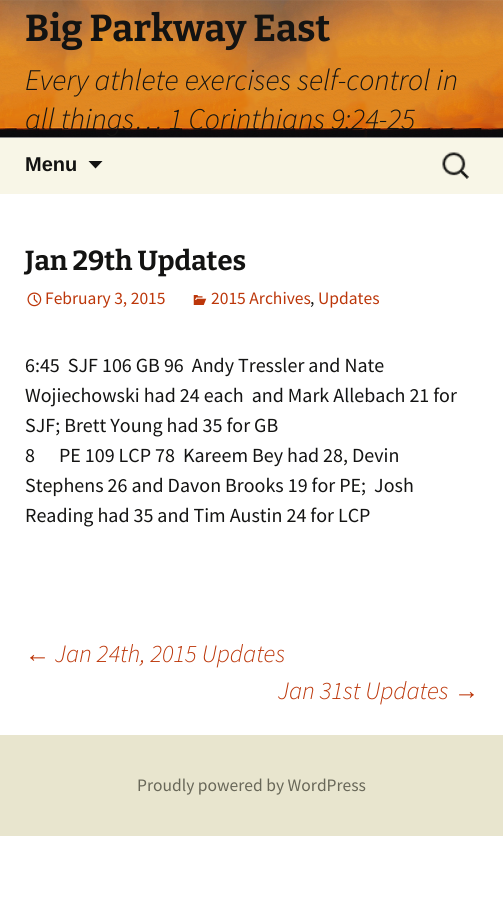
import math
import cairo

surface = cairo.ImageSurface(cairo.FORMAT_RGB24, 503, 916)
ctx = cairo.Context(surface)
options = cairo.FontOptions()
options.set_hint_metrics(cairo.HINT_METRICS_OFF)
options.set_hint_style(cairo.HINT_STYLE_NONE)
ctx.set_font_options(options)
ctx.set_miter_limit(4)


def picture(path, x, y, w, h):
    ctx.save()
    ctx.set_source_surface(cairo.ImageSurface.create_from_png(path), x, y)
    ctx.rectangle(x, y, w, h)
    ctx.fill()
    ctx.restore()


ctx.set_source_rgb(1, 1, 1)
ctx.paint()
picture("img1.png", 0, 0, 503, 138)
ctx.select_font_face("Bitter", cairo.FONT_SLANT_NORMAL, cairo.FONT_WEIGHT_BOLD)
ctx.set_font_size(37.5)
ctx.set_source_rgb(0.078, 0.078, 0.071)
ctx.move_to(25, 41)
ctx.show_text("Big Parkway East")
ctx.select_font_face("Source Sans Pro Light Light", cairo.FONT_SLANT_ITALIC)
ctx.set_font_size(30)
ctx.move_to(25, 90)
ctx.show_text("Every athlete exercises self-control in")
ctx.move_to(25, 129)
ctx.show_text("all things… 1 Corinthians 9:24-25")
ctx.set_source_rgb(0.969, 0.961, 0.906)
ctx.rectangle(0, 138, 503, 56)
ctx.fill()
ctx.select_font_face("Liberation Sans", cairo.FONT_SLANT_NORMAL, cairo.FONT_WEIGHT_BOLD)
ctx.set_font_size(20)
ctx.set_source_rgb(0.078, 0.078, 0.071)
ctx.move_to(25, 171)
ctx.show_text("Menu")
ctx.new_path()
ctx.move_to(88.5, 161)
ctx.line_to(95.5, 168.5)
ctx.line_to(102.5, 161)
ctx.close_path()
ctx.fill()
picture("img2.png", 442, 152, 27, 27)
ctx.select_font_face("Bitter", cairo.FONT_SLANT_NORMAL, cairo.FONT_WEIGHT_BOLD)
ctx.set_font_size(27.5)
ctx.move_to(25, 270)
ctx.show_text("Jan 29th Updates")
picture("img3.png", 27, 292, 15, 15)
ctx.select_font_face("Source Sans Pro")
ctx.set_font_size(17.5)
ctx.set_source_rgb(0.737, 0.212, 0.039)
ctx.move_to(45, 304)
ctx.show_text("February 3, 2015")
picture("img4.png", 193, 295, 14, 10)
ctx.move_to(211, 304)
ctx.show_text("2015 Archives")
ctx.set_source_rgb(0.078, 0.078, 0.071)
ctx.move_to(310, 304)
ctx.show_text(",")
ctx.set_source_rgb(0.737, 0.212, 0.039)
ctx.move_to(318, 304)
ctx.show_text("Updates")
ctx.set_font_size(20)
ctx.set_source_rgb(0.078, 0.078, 0.071)
ctx.move_to(25, 372)
ctx.show_text("6:45  SJF 106 GB 96  Andy Tressler and Nate")
ctx.move_to(25, 402)
ctx.show_text("Wojiechowski had 24 each  and Mark Allebach 21 for")
ctx.move_to(25, 432)
ctx.show_text("SJF; Brett Young had 35 for GB")
ctx.move_to(25, 462)
ctx.show_text("8      PE 109 LCP 78  Kareem Bey had 28, Devin")
ctx.move_to(25, 492)
ctx.show_text("Stephens 26 and Davon Brooks 19 for PE;  Josh")
ctx.move_to(25, 522)
ctx.show_text("Reading had 35 and Tim Austin 24 for LCP")
ctx.select_font_face("Liberation Sans", cairo.FONT_SLANT_ITALIC)
ctx.set_font_size(25)
ctx.set_source_rgb(0.737, 0.212, 0.039)
ctx.move_to(25, 662)
ctx.show_text("←")
ctx.select_font_face("Source Sans Pro Light Light", cairo.FONT_SLANT_ITALIC)
ctx.move_to(55, 662)
ctx.show_text("Jan 24th, 2015 Updates")
ctx.move_to(278, 699)
ctx.show_text("Jan 31st Updates")
ctx.select_font_face("Liberation Sans", cairo.FONT_SLANT_ITALIC)
ctx.move_to(454, 699)
ctx.show_text("→")
ctx.set_source_rgb(0.91, 0.898, 0.808)
ctx.rectangle(0, 735, 503, 101)
ctx.fill()
ctx.select_font_face("Source Sans Pro")
ctx.set_font_size(17.5)
ctx.set_source_rgb(0.408, 0.404, 0.345)
ctx.move_to(137, 791)
ctx.show_text("Proudly powered by WordPress")
surface.write_to_png("page.png")
